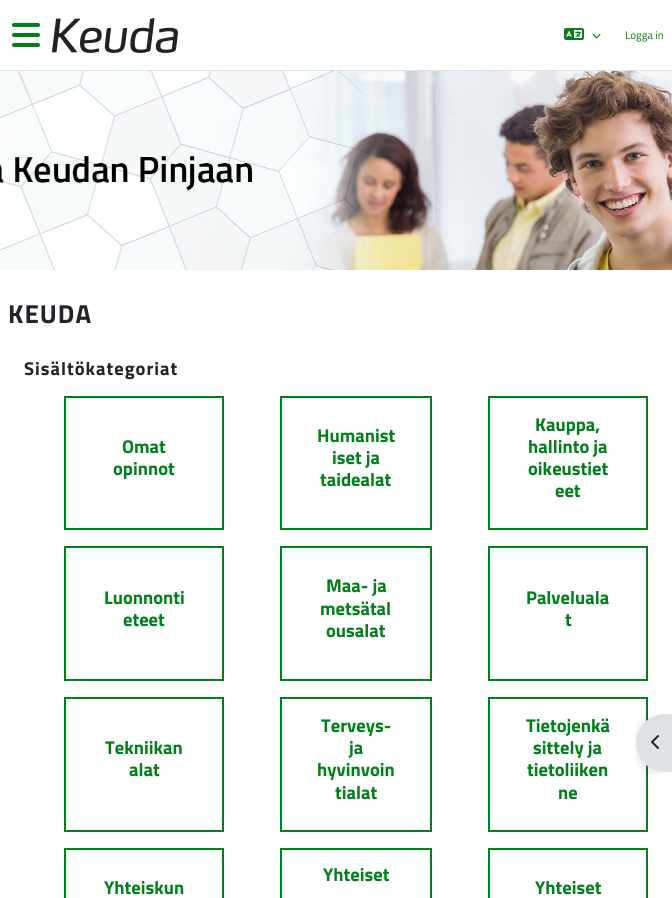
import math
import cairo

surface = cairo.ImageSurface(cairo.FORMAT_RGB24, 672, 898)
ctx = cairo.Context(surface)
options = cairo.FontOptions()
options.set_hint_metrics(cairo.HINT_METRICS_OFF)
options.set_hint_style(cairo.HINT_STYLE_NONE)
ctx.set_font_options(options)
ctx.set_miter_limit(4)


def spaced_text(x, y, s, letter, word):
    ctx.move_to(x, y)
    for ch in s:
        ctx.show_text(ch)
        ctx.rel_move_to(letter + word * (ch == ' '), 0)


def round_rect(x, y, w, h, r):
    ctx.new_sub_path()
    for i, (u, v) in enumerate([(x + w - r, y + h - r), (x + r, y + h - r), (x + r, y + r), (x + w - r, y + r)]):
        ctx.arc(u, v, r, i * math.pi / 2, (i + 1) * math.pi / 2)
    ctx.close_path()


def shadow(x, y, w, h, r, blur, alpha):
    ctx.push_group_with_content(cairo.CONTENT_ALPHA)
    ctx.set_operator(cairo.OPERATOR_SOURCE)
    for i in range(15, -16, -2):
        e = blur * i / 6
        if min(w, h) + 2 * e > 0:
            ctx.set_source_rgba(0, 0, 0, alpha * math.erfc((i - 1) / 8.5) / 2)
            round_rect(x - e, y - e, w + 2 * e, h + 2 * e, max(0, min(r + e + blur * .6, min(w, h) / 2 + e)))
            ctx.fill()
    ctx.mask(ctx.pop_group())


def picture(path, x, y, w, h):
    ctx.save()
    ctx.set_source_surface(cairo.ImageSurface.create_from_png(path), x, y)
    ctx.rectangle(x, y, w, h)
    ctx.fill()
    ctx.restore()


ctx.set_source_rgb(1, 1, 1)
ctx.paint()
ctx.set_source_rgb(0.871, 0.886, 0.902)
ctx.rectangle(0, 70, 672, 1)
ctx.fill()
picture("img1.png", 12, 23, 28, 24)
picture("img2.png", 52, 18, 126, 35)
picture("img3.png", 564, 28, 20, 12)
picture("img4.png", 592, 34, 9, 5)
ctx.select_font_face("Titillium Web")
ctx.set_font_size(11)
ctx.set_source_rgb(0, 0.502, 0.102)
ctx.move_to(625, 39)
ctx.show_text("Logga in")
picture("img5.png", 0, 71, 672, 199)
ctx.select_font_face("Titillium Web", cairo.FONT_SLANT_NORMAL, cairo.FONT_WEIGHT_BOLD)
ctx.set_font_size(26)
ctx.set_source_rgb(0.129, 0.145, 0.161)
spaced_text(8, 323, "KEUDA", 1, 0)
ctx.set_font_size(18.5)
spaced_text(24, 375, "Sisältökategoriat", 1, 0)
ctx.rectangle(65, 397, 158, 132)
ctx.set_source_rgb(0, 0.502, 0.102)
ctx.stroke()
ctx.move_to(122, 453)
ctx.show_text("Omat")
ctx.move_to(113, 475)
ctx.show_text("opinnot")
ctx.rectangle(281, 397, 150, 132)
ctx.stroke()
ctx.move_to(317, 442)
ctx.show_text("Humanist")
ctx.move_to(332, 464)
ctx.show_text("iset ja")
ctx.move_to(320, 486)
ctx.show_text("taidealat")
ctx.rectangle(489, 397, 158, 132)
ctx.stroke()
ctx.move_to(535, 431)
ctx.show_text("Kauppa,")
ctx.move_to(528, 453)
ctx.show_text("hallinto ja")
ctx.move_to(528, 475)
ctx.show_text("oikeustiet")
ctx.move_to(555, 497)
ctx.show_text("eet")
ctx.rectangle(65, 547, 158, 133)
ctx.stroke()
ctx.move_to(104, 604)
ctx.show_text("Luonnonti")
ctx.move_to(123, 626)
ctx.show_text("eteet")
ctx.rectangle(281, 547, 150, 133)
ctx.stroke()
ctx.move_to(326, 592)
ctx.show_text("Maa- ja")
ctx.move_to(320, 615)
ctx.show_text("metsätal")
ctx.move_to(326, 637)
ctx.show_text("ousalat")
ctx.rectangle(489, 547, 158, 133)
ctx.stroke()
ctx.move_to(526, 604)
ctx.show_text("Palveluala")
ctx.move_to(565, 626)
ctx.show_text("t")
ctx.rectangle(65, 698, 158, 133)
ctx.stroke()
ctx.move_to(105, 754)
ctx.show_text("Tekniikan")
ctx.move_to(129, 776)
ctx.show_text("alat")
ctx.rectangle(281, 698, 150, 133)
ctx.stroke()
ctx.move_to(321, 732)
ctx.show_text("Terveys-")
ctx.move_to(349, 754)
ctx.show_text("ja")
ctx.move_to(317, 776)
ctx.show_text("hyvinvoin")
ctx.move_to(335, 799)
ctx.show_text("tialat")
ctx.rectangle(489, 698, 158, 133)
ctx.stroke()
ctx.move_to(526, 732)
ctx.show_text("Tietojenkä")
ctx.move_to(533, 754)
ctx.show_text("sittely ja")
ctx.move_to(527, 776)
ctx.show_text("tietoliiken")
ctx.move_to(558, 799)
ctx.show_text("ne")
ctx.rectangle(281, 849, 150, 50)
ctx.stroke()
ctx.move_to(323, 881)
ctx.show_text("Yhteiset")
ctx.rectangle(65, 849, 158, 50)
ctx.stroke()
ctx.move_to(104, 894)
ctx.show_text("Yhteiskun")
ctx.rectangle(489, 849, 158, 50)
ctx.stroke()
ctx.move_to(535, 894)
ctx.show_text("Yhteiset")
ctx.set_source_rgb(0.2, 0.2, 0.2)
shadow(636, 716, 36, 58, 29, 2, 0.07)
ctx.set_source_rgb(0.871, 0.886, 0.902)
ctx.new_path()
ctx.move_to(665, 714)
ctx.line_to(672, 714)
ctx.line_to(672, 772)
ctx.line_to(665, 772)
ctx.curve_to(649, 772, 636, 759, 636, 743)
ctx.curve_to(636, 727, 649, 714, 665, 714)
ctx.close_path()
ctx.fill()
picture("img6.png", 651, 735, 8, 14)
surface.write_to_png("page.png")
